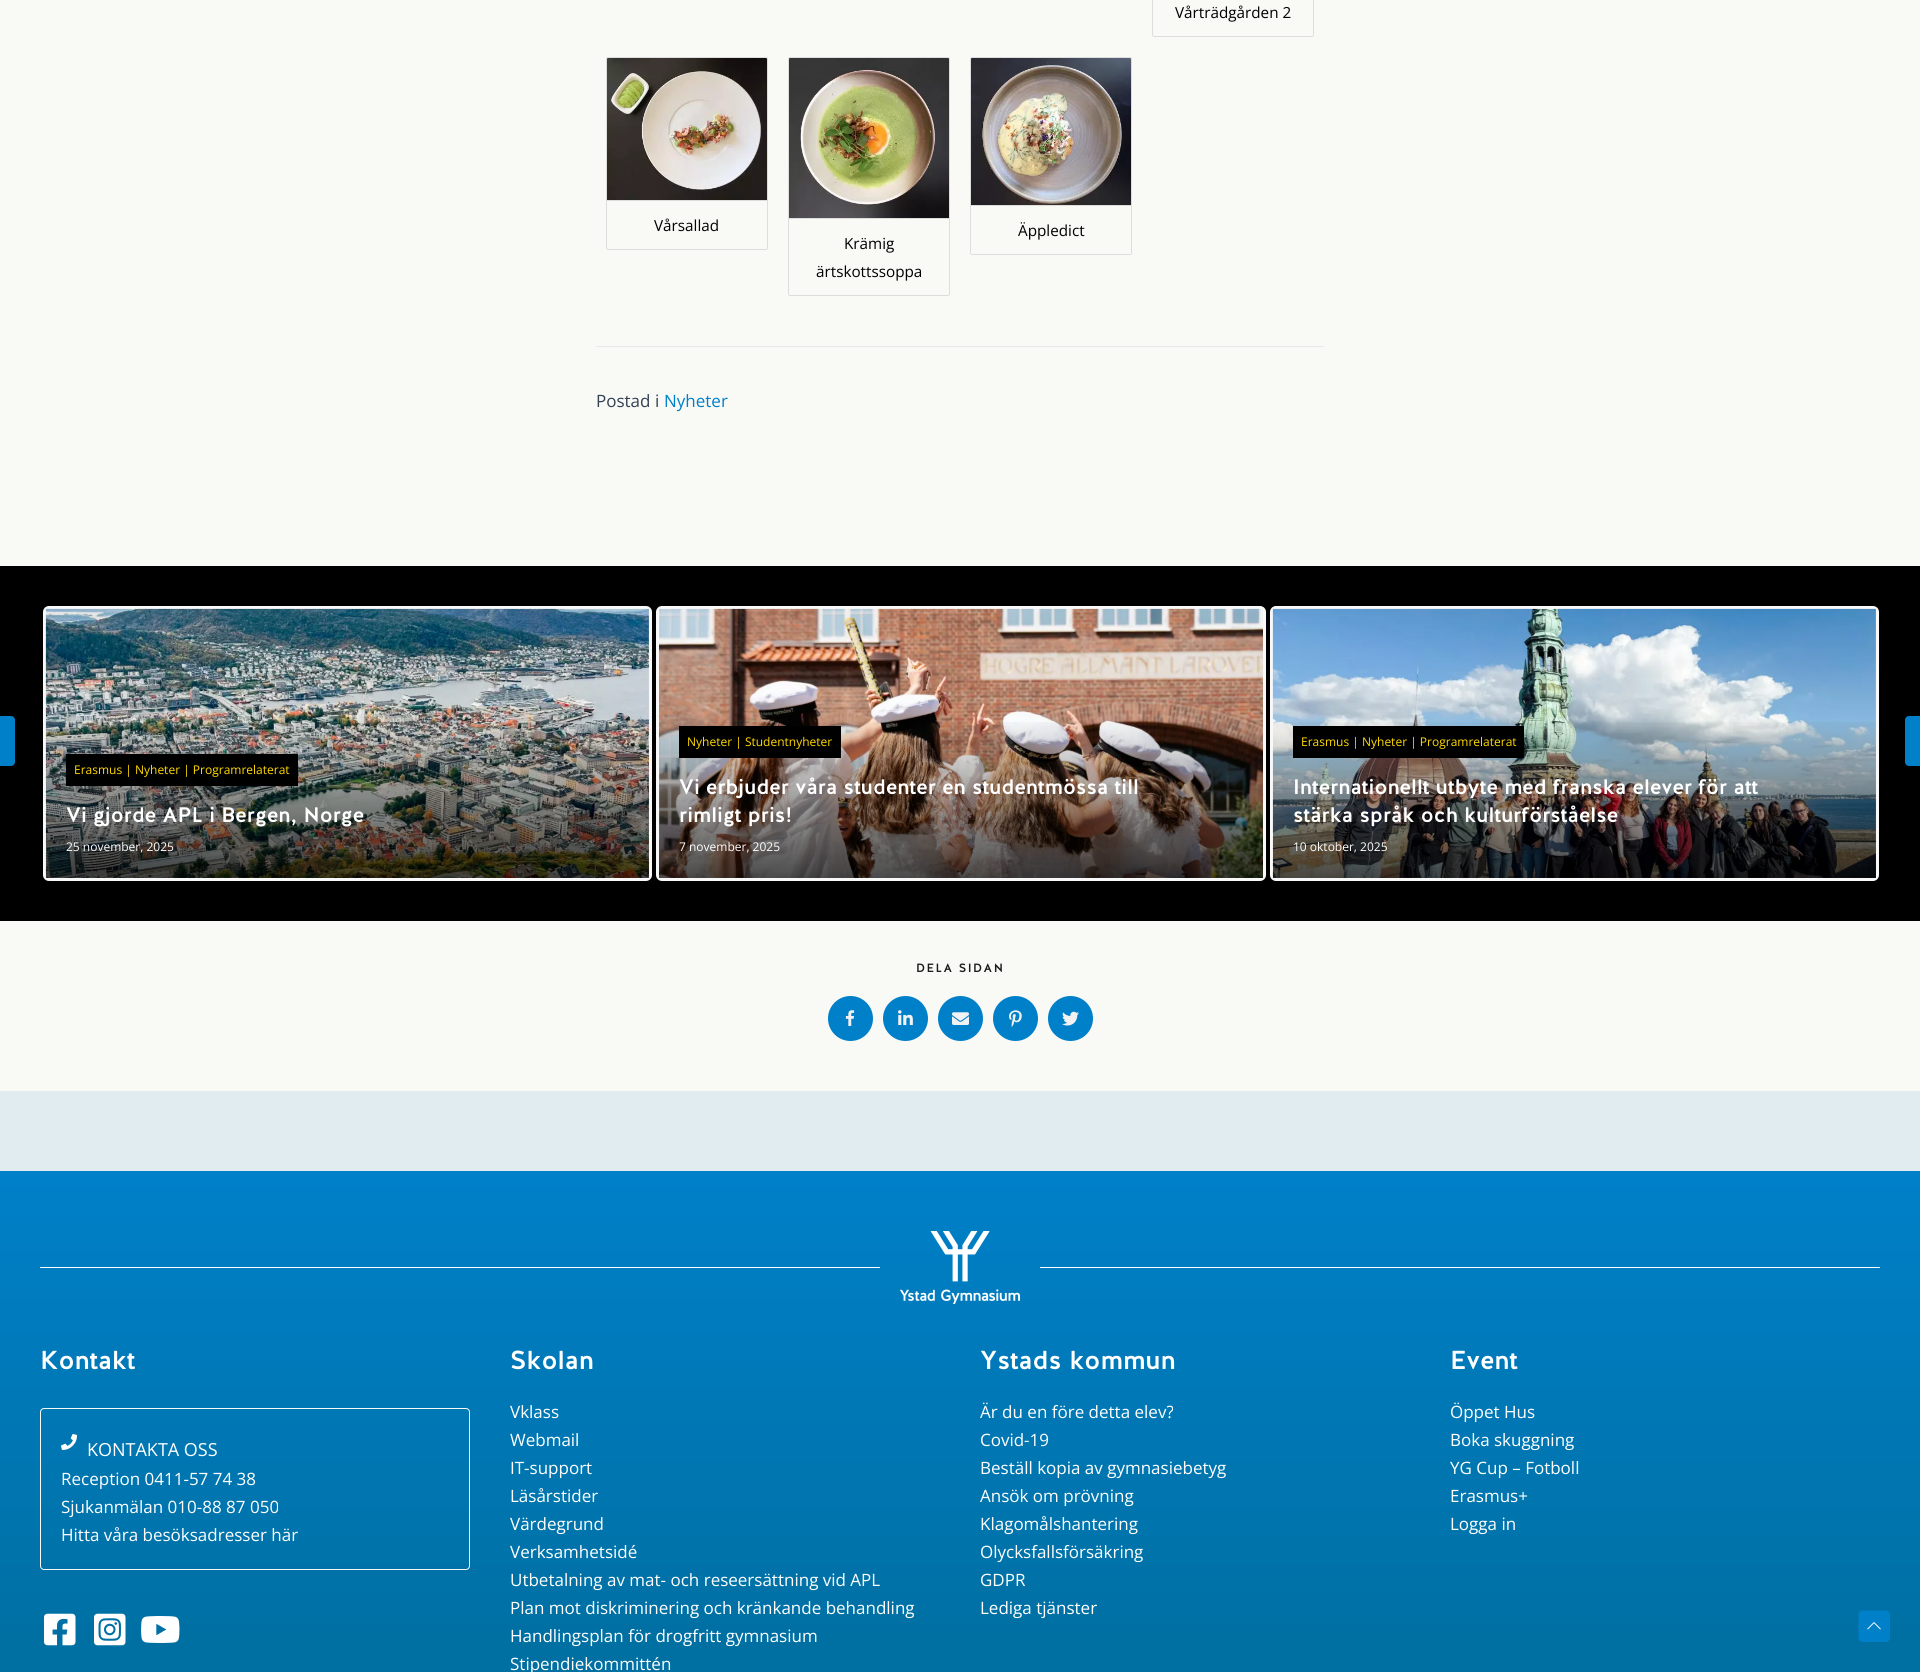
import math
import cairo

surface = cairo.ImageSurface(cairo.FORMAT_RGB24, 1920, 1672)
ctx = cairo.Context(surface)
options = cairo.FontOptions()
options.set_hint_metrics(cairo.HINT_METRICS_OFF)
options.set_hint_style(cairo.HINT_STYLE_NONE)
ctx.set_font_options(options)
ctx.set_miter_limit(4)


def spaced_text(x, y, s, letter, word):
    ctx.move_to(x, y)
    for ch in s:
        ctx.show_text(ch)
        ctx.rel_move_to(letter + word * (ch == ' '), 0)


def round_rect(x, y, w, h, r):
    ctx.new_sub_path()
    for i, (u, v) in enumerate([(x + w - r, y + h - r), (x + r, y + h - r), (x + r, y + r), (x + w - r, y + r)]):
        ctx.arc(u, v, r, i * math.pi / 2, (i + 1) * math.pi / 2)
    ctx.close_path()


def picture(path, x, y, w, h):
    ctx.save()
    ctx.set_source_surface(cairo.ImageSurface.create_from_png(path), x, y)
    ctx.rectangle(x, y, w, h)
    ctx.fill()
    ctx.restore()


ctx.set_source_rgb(0.976, 0.976, 0.961)
ctx.paint()
ctx.set_source_rgb(0.867, 0.867, 0.867)
ctx.rectangle(1313, 0, 1, 36)
ctx.fill()
ctx.rectangle(1153, 36, 160, 1)
ctx.fill()
ctx.rectangle(1152, 0, 1, 36)
ctx.fill()
ctx.select_font_face("Open Sans")
ctx.set_font_size(15.25)
ctx.set_source_rgb(0, 0, 0)
ctx.move_to(1175, 18)
ctx.show_text("Vårträdgården 2")
ctx.new_path()
ctx.move_to(608, 57.5)
ctx.line_to(766, 57.5)
ctx.curve_to(767, 57.5, 767.5, 58, 767.5, 59)
ctx.line_to(767.5, 200.5)
ctx.line_to(606.5, 200.5)
ctx.line_to(606.5, 59)
ctx.curve_to(606.5, 58, 607, 57.5, 608, 57.5)
ctx.close_path()
ctx.set_source_rgb(0.867, 0.867, 0.867)
ctx.set_line_width(1)
ctx.stroke()
picture("img1.png", 607, 58, 160, 142)
ctx.rectangle(767, 201, 1, 48)
ctx.fill()
ctx.rectangle(607, 249, 160, 1)
ctx.fill()
ctx.rectangle(606, 201, 1, 48)
ctx.fill()
ctx.set_source_rgb(0, 0, 0)
ctx.move_to(654, 231)
ctx.show_text("Vårsallad")
ctx.new_path()
ctx.move_to(972, 57.5)
ctx.line_to(1130, 57.5)
ctx.curve_to(1131, 57.5, 1131.5, 58, 1131.5, 59)
ctx.line_to(1131.5, 205.5)
ctx.line_to(970.5, 205.5)
ctx.line_to(970.5, 59)
ctx.curve_to(970.5, 58, 971, 57.5, 972, 57.5)
ctx.close_path()
ctx.set_source_rgb(0.867, 0.867, 0.867)
ctx.stroke()
picture("img2.png", 971, 58, 160, 147)
ctx.rectangle(1131, 206, 1, 48)
ctx.fill()
ctx.rectangle(971, 254, 160, 1)
ctx.fill()
ctx.rectangle(970, 206, 1, 48)
ctx.fill()
ctx.set_source_rgb(0, 0, 0)
ctx.move_to(1018, 236)
ctx.show_text("Äppledict")
ctx.new_path()
ctx.move_to(790, 57.5)
ctx.line_to(948, 57.5)
ctx.curve_to(949, 57.5, 949.5, 58, 949.5, 59)
ctx.line_to(949.5, 218.5)
ctx.line_to(788.5, 218.5)
ctx.line_to(788.5, 59)
ctx.curve_to(788.5, 58, 789, 57.5, 790, 57.5)
ctx.close_path()
ctx.set_source_rgb(0.867, 0.867, 0.867)
ctx.stroke()
picture("img3.png", 789, 58, 160, 160)
ctx.rectangle(949, 219, 1, 76)
ctx.fill()
ctx.rectangle(789, 295, 160, 1)
ctx.fill()
ctx.rectangle(788, 219, 1, 76)
ctx.fill()
ctx.set_source_rgb(0, 0, 0)
ctx.move_to(844, 249)
ctx.show_text("Krämig")
ctx.move_to(816, 277)
ctx.show_text("ärtskottssoppa")
ctx.set_source_rgb(0.91, 0.91, 0.91)
ctx.rectangle(596, 346, 728, 1)
ctx.fill()
ctx.set_font_size(17)
ctx.set_source_rgb(0.2, 0.255, 0.333)
ctx.move_to(596, 407)
ctx.show_text("Postad i")
ctx.set_source_rgb(0, 0.502, 0.788)
ctx.move_to(664, 407)
ctx.show_text("Nyheter")
ctx.set_source_rgb(0, 0, 0)
ctx.rectangle(0, 566, 1920, 355)
ctx.fill()
ctx.set_source_rgb(0, 0.502, 0.784)
round_rect(-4, 716, 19, 50, 4)
ctx.fill()
round_rect(1905, 716, 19, 50, 4)
ctx.fill()
ctx.set_source_rgb(0.969, 0.969, 0.969)
round_rect(43, 606, 609, 275, 6)
ctx.fill()
picture("img4.png", 45, 608, 604, 270)
gradient = cairo.LinearGradient(348, 609, 348, 878)
gradient.add_color_stop_rgba(0.4, 0, 0, 0, 0)
gradient.add_color_stop_rgba(1, 0, 0, 0, 0.7)
ctx.set_source(gradient)
ctx.rectangle(46, 722, 603, 156)
ctx.fill()
ctx.set_source_rgb(0, 0, 0)
ctx.rectangle(66, 754, 232, 32)
ctx.fill()
ctx.set_font_size(12)
ctx.set_source_rgb(1, 0.855, 0)
ctx.move_to(74, 774)
ctx.show_text("Erasmus | Nyheter | Programrelaterat")
ctx.select_font_face("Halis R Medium")
ctx.set_font_size(21)
ctx.set_source_rgb(1, 1, 1)
ctx.move_to(66, 822)
ctx.show_text("Vi gjorde APL i Bergen, Norge")
ctx.select_font_face("Open Sans")
ctx.set_font_size(12)
ctx.move_to(66, 851)
ctx.show_text("25 november, 2025")
ctx.set_source_rgb(0.969, 0.969, 0.969)
round_rect(656, 606, 610, 275, 6)
ctx.fill()
picture("img5.png", 659, 608, 604, 270)
gradient = cairo.LinearGradient(961, 609, 961, 878)
gradient.add_color_stop_rgba(0.4, 0, 0, 0, 0)
gradient.add_color_stop_rgba(1, 0, 0, 0, 0.7)
ctx.set_source(gradient)
ctx.rectangle(659, 722, 604, 156)
ctx.fill()
ctx.set_source_rgb(0, 0, 0)
ctx.rectangle(679, 726, 162, 32)
ctx.fill()
ctx.set_source_rgb(1, 0.855, 0)
ctx.move_to(687, 746)
ctx.show_text("Nyheter | Studentnyheter")
ctx.select_font_face("Halis R Medium")
ctx.set_font_size(21)
ctx.set_source_rgb(1, 1, 1)
ctx.move_to(679, 794)
ctx.show_text("Vi erbjuder våra studenter en studentmössa till")
ctx.move_to(679, 822)
ctx.show_text("rimligt pris!")
ctx.select_font_face("Open Sans")
ctx.set_font_size(12)
ctx.move_to(679, 851)
ctx.show_text("7 november, 2025")
ctx.set_source_rgb(0.969, 0.969, 0.969)
round_rect(1270, 606, 609, 275, 6)
ctx.fill()
picture("img6.png", 1272, 608, 604, 270)
gradient = cairo.LinearGradient(1575, 609, 1575, 878)
gradient.add_color_stop_rgba(0.4, 0, 0, 0, 0)
gradient.add_color_stop_rgba(1, 0, 0, 0, 0.7)
ctx.set_source(gradient)
ctx.rectangle(1273, 722, 603, 156)
ctx.fill()
ctx.set_source_rgb(0, 0, 0)
ctx.rectangle(1293, 726, 231, 32)
ctx.fill()
ctx.set_source_rgb(1, 0.855, 0)
ctx.move_to(1301, 746)
ctx.show_text("Erasmus | Nyheter | Programrelaterat")
ctx.select_font_face("Halis R Medium")
ctx.set_font_size(21)
ctx.set_source_rgb(1, 1, 1)
ctx.move_to(1293, 794)
ctx.show_text("Internationellt utbyte med franska elever för att")
ctx.move_to(1293, 822)
ctx.show_text("stärka språk och kulturförståelse")
ctx.select_font_face("Open Sans")
ctx.set_font_size(12)
ctx.move_to(1293, 851)
ctx.show_text("10 oktober, 2025")
ctx.select_font_face("Halis R Medium")
ctx.set_source_rgb(0.114, 0.114, 0.114)
spaced_text(916, 972, "DELA SIDAN", 1.5, 0)
ctx.set_source_rgb(0, 0.502, 0.788)
ctx.new_path()
ctx.arc(850.5, 1018.5, 22.5, 0, 2 * math.pi)
ctx.fill()
picture("img7.png", 845, 1010, 10, 16)
ctx.arc(905.5, 1018.5, 22.5, 0, 2 * math.pi)
ctx.fill()
picture("img8.png", 898, 1010, 15, 15)
ctx.arc(960.5, 1018.5, 22.5, 0, 2 * math.pi)
ctx.fill()
picture("img9.png", 952, 1012, 17, 13)
ctx.arc(1015.5, 1018.5, 22.5, 0, 2 * math.pi)
ctx.fill()
picture("img10.png", 1009, 1010, 13, 17)
ctx.arc(1070.5, 1018.5, 22.5, 0, 2 * math.pi)
ctx.fill()
picture("img11.png", 1062, 1011, 17, 15)
ctx.set_source_rgb(0.878, 0.925, 0.941)
ctx.rectangle(0, 1091, 1920, 80)
ctx.fill()
gradient = cairo.LinearGradient(960, 1171, 960, 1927)
gradient.add_color_stop_rgba(0, 0, 0.502, 0.788, 1)
gradient.add_color_stop_rgba(1, 0, 0.4, 0.549, 1)
ctx.set_source(gradient)
ctx.rectangle(0, 1171, 1920, 501)
ctx.fill()
ctx.set_source_rgb(1, 1, 1)
ctx.rectangle(40, 1267, 840, 1)
ctx.fill()
picture("img12.png", 900, 1231, 120, 73)
ctx.rectangle(1040, 1267, 840, 1)
ctx.fill()
ctx.set_font_size(26)
ctx.move_to(40, 1369)
ctx.show_text("Kontakt")
round_rect(40.5, 1408.5, 429, 161, 3.5)
ctx.set_source_rgb(0.976, 0.976, 0.961)
ctx.stroke()
picture("img13.png", 61, 1434, 16, 16)
ctx.select_font_face("Open Sans")
ctx.set_font_size(18)
ctx.set_source_rgb(1, 1, 1)
ctx.move_to(87, 1456)
ctx.show_text("KONTAKTA OSS")
ctx.set_font_size(17)
ctx.move_to(61, 1485)
ctx.show_text("Reception 0411-57 74 38")
ctx.move_to(61, 1513)
ctx.show_text("Sjukanmälan 010-88 87 050")
ctx.move_to(61, 1541)
ctx.show_text("Hitta våra besöksadresser här")
picture("img14.png", 44, 1613, 32, 33)
picture("img15.png", 94, 1613, 32, 33)
picture("img16.png", 141, 1616, 39, 27)
ctx.select_font_face("Halis R Medium")
ctx.set_font_size(26)
ctx.move_to(510, 1369)
ctx.show_text("Skolan")
ctx.select_font_face("Open Sans")
ctx.set_font_size(17)
ctx.move_to(510, 1418)
ctx.show_text("Vklass")
ctx.move_to(510, 1446)
ctx.show_text("Webmail")
ctx.move_to(510, 1474)
ctx.show_text("IT-support")
ctx.move_to(510, 1502)
ctx.show_text("Läsårstider")
ctx.move_to(510, 1530)
ctx.show_text("Värdegrund")
ctx.move_to(510, 1558)
ctx.show_text("Verksamhetsidé")
ctx.move_to(510, 1586)
ctx.show_text("Utbetalning av mat- och reseersättning vid APL")
ctx.move_to(510, 1614)
ctx.show_text("Plan mot diskriminering och kränkande behandling")
ctx.move_to(510, 1642)
ctx.show_text("Handlingsplan för drogfritt gymnasium")
ctx.move_to(510, 1670)
ctx.show_text("Stipendiekommittén")
ctx.select_font_face("Halis R Medium")
ctx.set_font_size(26)
ctx.move_to(980, 1369)
ctx.show_text("Ystads kommun")
ctx.select_font_face("Open Sans")
ctx.set_font_size(17)
ctx.move_to(980, 1418)
ctx.show_text("Är du en före detta elev?")
ctx.move_to(980, 1446)
ctx.show_text("Covid-19")
ctx.move_to(980, 1474)
ctx.show_text("Beställ kopia av gymnasiebetyg")
ctx.move_to(980, 1502)
ctx.show_text("Ansök om prövning")
ctx.move_to(980, 1530)
ctx.show_text("Klagomålshantering")
ctx.move_to(980, 1558)
ctx.show_text("Olycksfallsförsäkring")
ctx.move_to(980, 1586)
ctx.show_text("GDPR")
ctx.move_to(980, 1614)
ctx.show_text("Lediga tjänster")
ctx.select_font_face("Halis R Medium")
ctx.set_font_size(26)
ctx.move_to(1450, 1369)
ctx.show_text("Event")
ctx.select_font_face("Open Sans")
ctx.set_font_size(17)
ctx.move_to(1450, 1418)
ctx.show_text("Öppet Hus")
ctx.move_to(1450, 1446)
ctx.show_text("Boka skuggning")
ctx.move_to(1450, 1474)
ctx.show_text("YG Cup – Fotboll")
ctx.move_to(1450, 1502)
ctx.show_text("Erasmus+")
ctx.move_to(1450, 1530)
ctx.show_text("Logga in")
ctx.set_source_rgb(0, 0.502, 0.788)
ctx.new_path()
ctx.move_to(1886, 1642)
ctx.line_to(1862.5, 1642)
ctx.curve_to(1860.5, 1642, 1858.5, 1640, 1858.5, 1638)
ctx.line_to(1858.5, 1614.5)
ctx.curve_to(1858.5, 1612.5, 1860.5, 1610.5, 1862.5, 1610.5)
ctx.line_to(1886, 1610.5)
ctx.curve_to(1888, 1610.5, 1890, 1612.5, 1890, 1614.5)
ctx.line_to(1890, 1638)
ctx.curve_to(1890, 1640, 1888, 1642, 1886, 1642)
ctx.close_path()
ctx.fill()
picture("img17.png", 1867, 1622, 14, 8)
surface.write_to_png("page.png")
